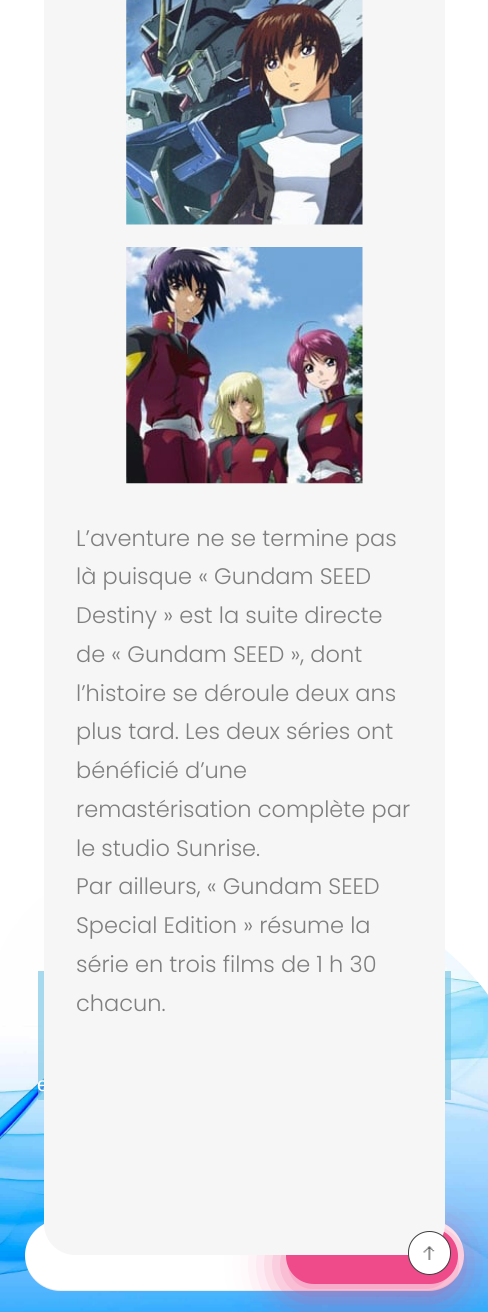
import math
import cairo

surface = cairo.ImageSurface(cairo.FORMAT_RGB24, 488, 1312)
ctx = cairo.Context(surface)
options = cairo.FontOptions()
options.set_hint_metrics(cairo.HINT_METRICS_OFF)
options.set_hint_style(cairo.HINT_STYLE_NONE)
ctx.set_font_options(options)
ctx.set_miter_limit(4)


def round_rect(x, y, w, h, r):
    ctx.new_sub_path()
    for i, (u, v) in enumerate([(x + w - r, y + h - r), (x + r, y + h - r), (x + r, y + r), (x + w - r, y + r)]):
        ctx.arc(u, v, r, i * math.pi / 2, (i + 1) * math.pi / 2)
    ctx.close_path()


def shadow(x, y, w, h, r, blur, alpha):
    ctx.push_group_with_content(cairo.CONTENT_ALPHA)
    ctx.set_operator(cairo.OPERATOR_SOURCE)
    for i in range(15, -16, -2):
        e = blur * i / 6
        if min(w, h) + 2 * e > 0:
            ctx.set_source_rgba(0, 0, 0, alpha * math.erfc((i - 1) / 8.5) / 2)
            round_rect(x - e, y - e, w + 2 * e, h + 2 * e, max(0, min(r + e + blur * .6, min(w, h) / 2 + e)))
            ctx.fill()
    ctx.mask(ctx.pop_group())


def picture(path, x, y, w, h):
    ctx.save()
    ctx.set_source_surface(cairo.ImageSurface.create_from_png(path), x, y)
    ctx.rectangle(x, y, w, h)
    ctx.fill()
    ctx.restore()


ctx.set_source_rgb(1, 1, 1)
ctx.paint()
picture("img3.png", 0, 894, 488, 418)
ctx.set_source_rgb(1, 1, 1)
ctx.new_path()
ctx.move_to(184, 856)
ctx.curve_to(377, 854, 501, 990, 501, 1023)
ctx.line_to(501, 850)
ctx.line_to(-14, 850)
ctx.line_to(-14, 1023)
ctx.curve_to(-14, 990, -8, 857, 184, 856)
ctx.close_path()
ctx.fill()
ctx.set_source_rgba(0.431, 0.757, 0.894, 0.61)
ctx.rectangle(38, 971, 413, 129)
ctx.fill()
ctx.select_font_face("Liberation Sans")
ctx.set_font_size(20)
ctx.set_source_rgb(1, 1, 1)
ctx.move_to(37, 1091)
ctx.show_text("e")
round_rect(25, 1220, 439, 71, 35.5)
ctx.fill()
ctx.set_source_rgba(0, 0, 0, 0.07)
ctx.new_path()
ctx.move_to(25, 1255)
ctx.line_to(25, 1256)
ctx.curve_to(25, 1275, 41, 1291, 60, 1291)
ctx.line_to(428, 1291)
ctx.curve_to(448, 1291, 464, 1275, 464, 1256)
ctx.line_to(464, 1255)
ctx.curve_to(464, 1274, 448, 1290, 428, 1290)
ctx.line_to(61, 1290)
ctx.curve_to(41, 1290, 25, 1274, 25, 1255)
ctx.close_path()
ctx.fill()
ctx.set_source_rgb(0.937, 0.29, 0.541)
shadow(284, 1236, 171, 57, 28.5, 24, 0.73)
ctx.set_source_rgb(0.937, 0.29, 0.541)
round_rect(286, 1228, 172, 56, 28)
ctx.fill()
ctx.set_source_rgb(0.961, 0.961, 0.961)
ctx.new_path()
ctx.move_to(44, -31)
ctx.line_to(445, -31)
ctx.line_to(445, 1224)
ctx.curve_to(445, 1241, 431, 1255, 414, 1255)
ctx.line_to(75, 1255)
ctx.curve_to(58, 1255, 44, 1241, 44, 1224)
ctx.close_path()
ctx.fill()
picture("img1.png", 126, 0, 237, 225)
picture("img2.png", 126, 247, 237, 237)
ctx.select_font_face("Poppins Light")
ctx.set_font_size(22.5)
ctx.set_source_rgb(0.498, 0.498, 0.498)
ctx.move_to(76, 546)
ctx.show_text("L’aventure ne se termine pas")
ctx.move_to(76, 584)
ctx.show_text("là puisque « Gundam SEED")
ctx.move_to(76, 623)
ctx.show_text("Destiny » est la suite directe")
ctx.move_to(76, 662)
ctx.show_text("de « Gundam SEED », dont")
ctx.move_to(76, 701)
ctx.show_text("l’histoire se déroule deux ans")
ctx.move_to(76, 739)
ctx.show_text("plus tard. Les deux séries ont")
ctx.move_to(76, 778)
ctx.show_text("bénéficié d’une")
ctx.move_to(76, 817)
ctx.show_text("remastérisation complète par")
ctx.move_to(76, 856)
ctx.show_text("le studio Sunrise.")
ctx.move_to(76, 894)
ctx.show_text("Par ailleurs, « Gundam SEED")
ctx.move_to(76, 933)
ctx.show_text("Special Edition » résume la")
ctx.move_to(76, 972)
ctx.show_text("série en trois films de 1 h 30")
ctx.move_to(76, 1011)
ctx.show_text("chacun.")
ctx.set_source_rgb(1, 1, 1)
round_rect(408.5, 1231.5, 42, 43, 21)
ctx.fill_preserve()
ctx.set_source_rgb(0.239, 0.239, 0.239)
ctx.set_line_width(1)
ctx.stroke()
picture("img4.png", 423, 1246, 12, 14)
surface.write_to_png("page.png")
